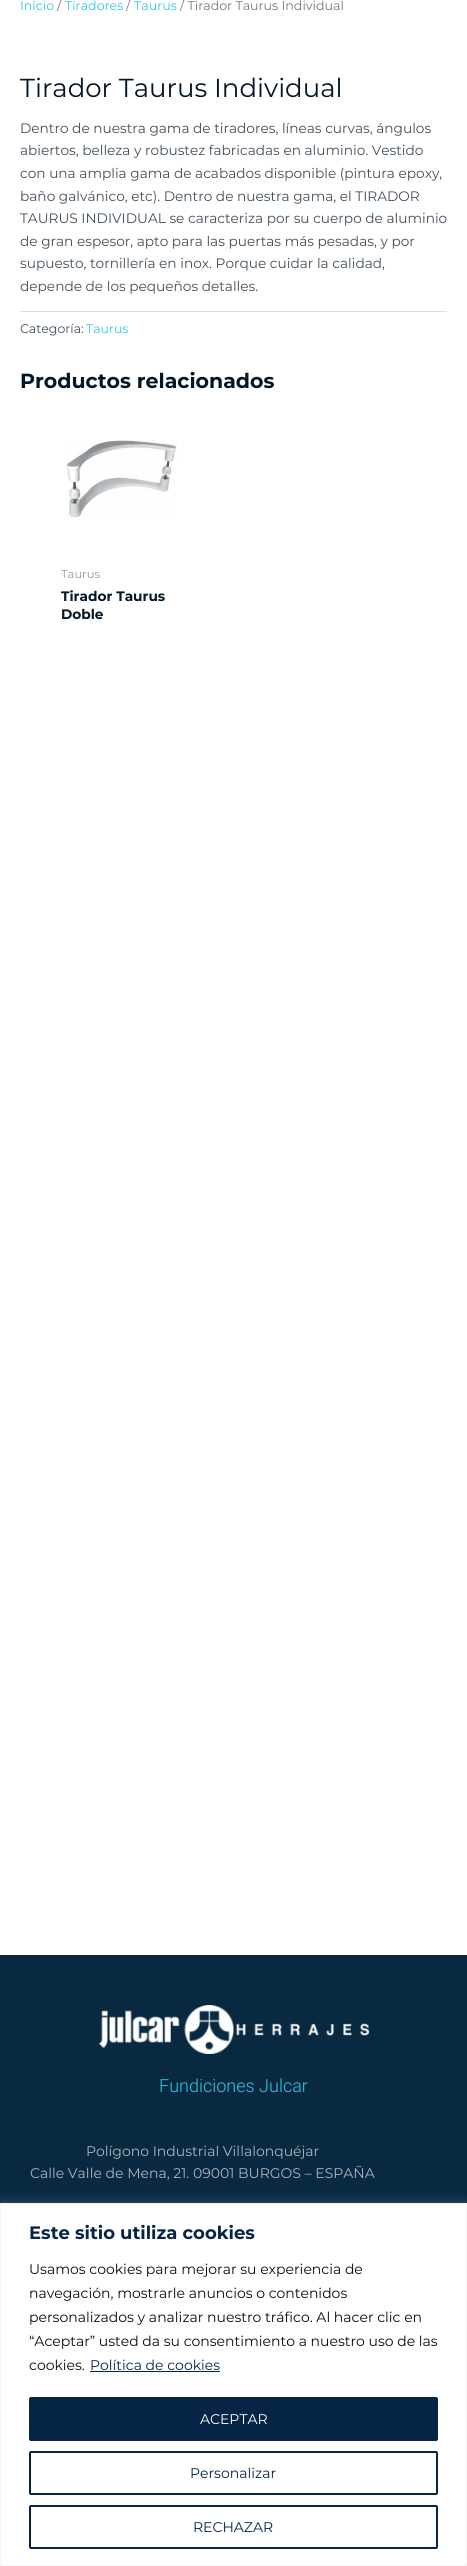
import math
import cairo

surface = cairo.ImageSurface(cairo.FORMAT_RGB24, 467, 2566)
ctx = cairo.Context(surface)
options = cairo.FontOptions()
options.set_hint_metrics(cairo.HINT_METRICS_OFF)
options.set_hint_style(cairo.HINT_STYLE_NONE)
ctx.set_font_options(options)
ctx.set_miter_limit(4)


def round_rect(x, y, w, h, r):
    ctx.new_sub_path()
    for i, (u, v) in enumerate([(x + w - r, y + h - r), (x + r, y + h - r), (x + r, y + r), (x + w - r, y + r)]):
        ctx.arc(u, v, r, i * math.pi / 2, (i + 1) * math.pi / 2)
    ctx.close_path()


def shadow(x, y, w, h, r, blur, alpha):
    ctx.push_group_with_content(cairo.CONTENT_ALPHA)
    ctx.set_operator(cairo.OPERATOR_SOURCE)
    for i in range(15, -16, -2):
        e = blur * i / 6
        if min(w, h) + 2 * e > 0:
            ctx.set_source_rgba(0, 0, 0, alpha * math.erfc((i - 1) / 8.5) / 2)
            round_rect(x - e, y - e, w + 2 * e, h + 2 * e, max(0, min(r + e + blur * .6, min(w, h) / 2 + e)))
            ctx.fill()
    ctx.mask(ctx.pop_group())


def picture(path, x, y, w, h):
    ctx.save()
    ctx.set_source_surface(cairo.ImageSurface.create_from_png(path), x, y)
    ctx.rectangle(x, y, w, h)
    ctx.fill()
    ctx.restore()


ctx.set_source_rgb(1, 1, 1)
ctx.paint()
ctx.select_font_face("Montserrat")
ctx.set_font_size(12.6)
ctx.set_source_rgb(0.216, 0.769, 0.91)
ctx.move_to(20, 10)
ctx.show_text("Inicio")
ctx.set_source_rgb(0.467, 0.467, 0.467)
ctx.move_to(57, 10)
ctx.show_text("/")
ctx.set_source_rgb(0.216, 0.769, 0.91)
ctx.move_to(65, 10)
ctx.show_text("Tiradores")
ctx.set_source_rgb(0.467, 0.467, 0.467)
ctx.move_to(126, 10)
ctx.show_text("/")
ctx.set_source_rgb(0.216, 0.769, 0.91)
ctx.move_to(134, 10)
ctx.show_text("Taurus")
ctx.set_source_rgb(0.467, 0.467, 0.467)
ctx.move_to(180, 10)
ctx.show_text("/ Tirador Taurus Individual")
ctx.set_font_size(26)
ctx.set_source_rgb(0.004, 0.086, 0.153)
ctx.move_to(20, 97)
ctx.show_text("Tirador Taurus Individual")
ctx.set_font_size(13.7)
ctx.set_source_rgb(0.255, 0.314, 0.365)
ctx.move_to(20, 133)
ctx.show_text("Dentro de nuestra gama de tiradores, líneas curvas, ángulos")
ctx.move_to(20, 155)
ctx.show_text("abiertos, belleza y robustez fabricadas en aluminio. Vestido")
ctx.move_to(20, 178)
ctx.show_text("con una amplia gama de acabados disponible (pintura epoxy,")
ctx.move_to(20, 201)
ctx.show_text("baño galvánico, etc). Dentro de nuestra gama, el TIRADOR")
ctx.move_to(20, 223)
ctx.show_text("TAURUS INDIVIDUAL se caracteriza por su cuerpo de aluminio")
ctx.move_to(20, 246)
ctx.show_text("de gran espesor, apto para las puertas más pesadas, y por")
ctx.move_to(20, 268)
ctx.show_text("supuesto, tornillería en inox. Porque cuidar la calidad,")
ctx.move_to(20, 291)
ctx.show_text("depende de los pequeños detalles.")
ctx.set_source_rgb(0.867, 0.867, 0.867)
ctx.rectangle(20, 311, 427, 1)
ctx.fill()
ctx.set_font_size(12.5)
ctx.set_source_rgb(0.255, 0.314, 0.365)
ctx.move_to(20, 333)
ctx.show_text("Categoría:")
ctx.set_source_rgb(0.216, 0.769, 0.91)
ctx.move_to(86, 333)
ctx.show_text("Taurus")
ctx.select_font_face("Montserrat", cairo.FONT_SLANT_NORMAL, cairo.FONT_WEIGHT_BOLD)
ctx.set_font_size(20.5)
ctx.set_source_rgb(0.004, 0.086, 0.153)
ctx.move_to(20, 388)
ctx.show_text("Productos relacionados")
picture("img1.png", 66, 440, 111, 78)
ctx.select_font_face("Montserrat")
ctx.set_font_size(11.5)
ctx.set_source_rgb(0.553, 0.588, 0.62)
ctx.move_to(61, 578)
ctx.show_text("Taurus")
ctx.select_font_face("Montserrat", cairo.FONT_SLANT_NORMAL, cairo.FONT_WEIGHT_BOLD)
ctx.set_font_size(13.7)
ctx.set_source_rgb(0.004, 0.086, 0.153)
ctx.move_to(61, 601)
ctx.show_text("Tirador Taurus")
ctx.move_to(61, 619)
ctx.show_text("Doble")
ctx.set_source_rgb(0.039, 0.161, 0.255)
ctx.rectangle(0, 1955, 467, 248)
ctx.fill()
picture("img2.png", 99, 2005, 270, 49)
ctx.select_font_face("Roboto Light")
ctx.set_font_size(18)
ctx.set_source_rgb(0.216, 0.769, 0.91)
ctx.move_to(159, 2092)
ctx.show_text("Fundiciones Julcar")
ctx.select_font_face("Montserrat")
ctx.set_font_size(14)
ctx.set_source_rgb(0.663, 0.706, 0.741)
ctx.move_to(86, 2156)
ctx.show_text("Polígono Industrial Villalonquéjar")
ctx.move_to(30, 2178)
ctx.show_text("Calle Valle de Mena, 21. 09001 BURGOS – ESPAÑA")
ctx.set_source_rgb(0.675, 0.671, 0.671)
shadow(0, 2202, 467, 363, 0, 5, 0.3)
ctx.set_source_rgb(1, 1, 1)
ctx.rectangle(0.5, 2203.5, 466, 362)
ctx.fill_preserve()
ctx.set_source_rgb(0.957, 0.957, 0.957)
ctx.set_line_width(1)
ctx.stroke()
ctx.select_font_face("Montserrat", cairo.FONT_SLANT_NORMAL, cairo.FONT_WEIGHT_BOLD)
ctx.set_font_size(18)
ctx.set_source_rgb(0.024, 0.141, 0.271)
ctx.move_to(29, 2239)
ctx.show_text("Este sitio utiliza cookies")
ctx.select_font_face("Montserrat")
ctx.set_font_size(14)
ctx.set_source_rgb(0.047, 0.047, 0.047)
ctx.move_to(29, 2274)
ctx.show_text("Usamos cookies para mejorar su experiencia de")
ctx.move_to(29, 2298)
ctx.show_text("navegación, mostrarle anuncios o contenidos")
ctx.move_to(29, 2322)
ctx.show_text("personalizados y analizar nuestro tráfico. Al hacer clic en")
ctx.move_to(29, 2346)
ctx.show_text("“Aceptar” usted da su consentimiento a nuestro uso de las")
ctx.move_to(29, 2370)
ctx.show_text("cookies.")
ctx.set_source_rgb(0.024, 0.141, 0.271)
ctx.move_to(90, 2370)
ctx.show_text("Política de cookies")
ctx.rectangle(90, 2371, 130, 1)
ctx.fill()
round_rect(30, 2398, 407, 42, 1)
ctx.fill_preserve()
ctx.set_line_width(2)
ctx.stroke()
ctx.set_source_rgb(1, 1, 1)
ctx.move_to(200, 2424)
ctx.show_text("ACEPTAR")
round_rect(30, 2452, 407, 42, 1)
ctx.set_source_rgb(0.024, 0.141, 0.271)
ctx.stroke()
ctx.move_to(190, 2478)
ctx.show_text("Personalizar")
round_rect(30, 2506, 407, 42, 1)
ctx.stroke()
ctx.move_to(193, 2532)
ctx.show_text("RECHAZAR")
surface.write_to_png("page.png")
